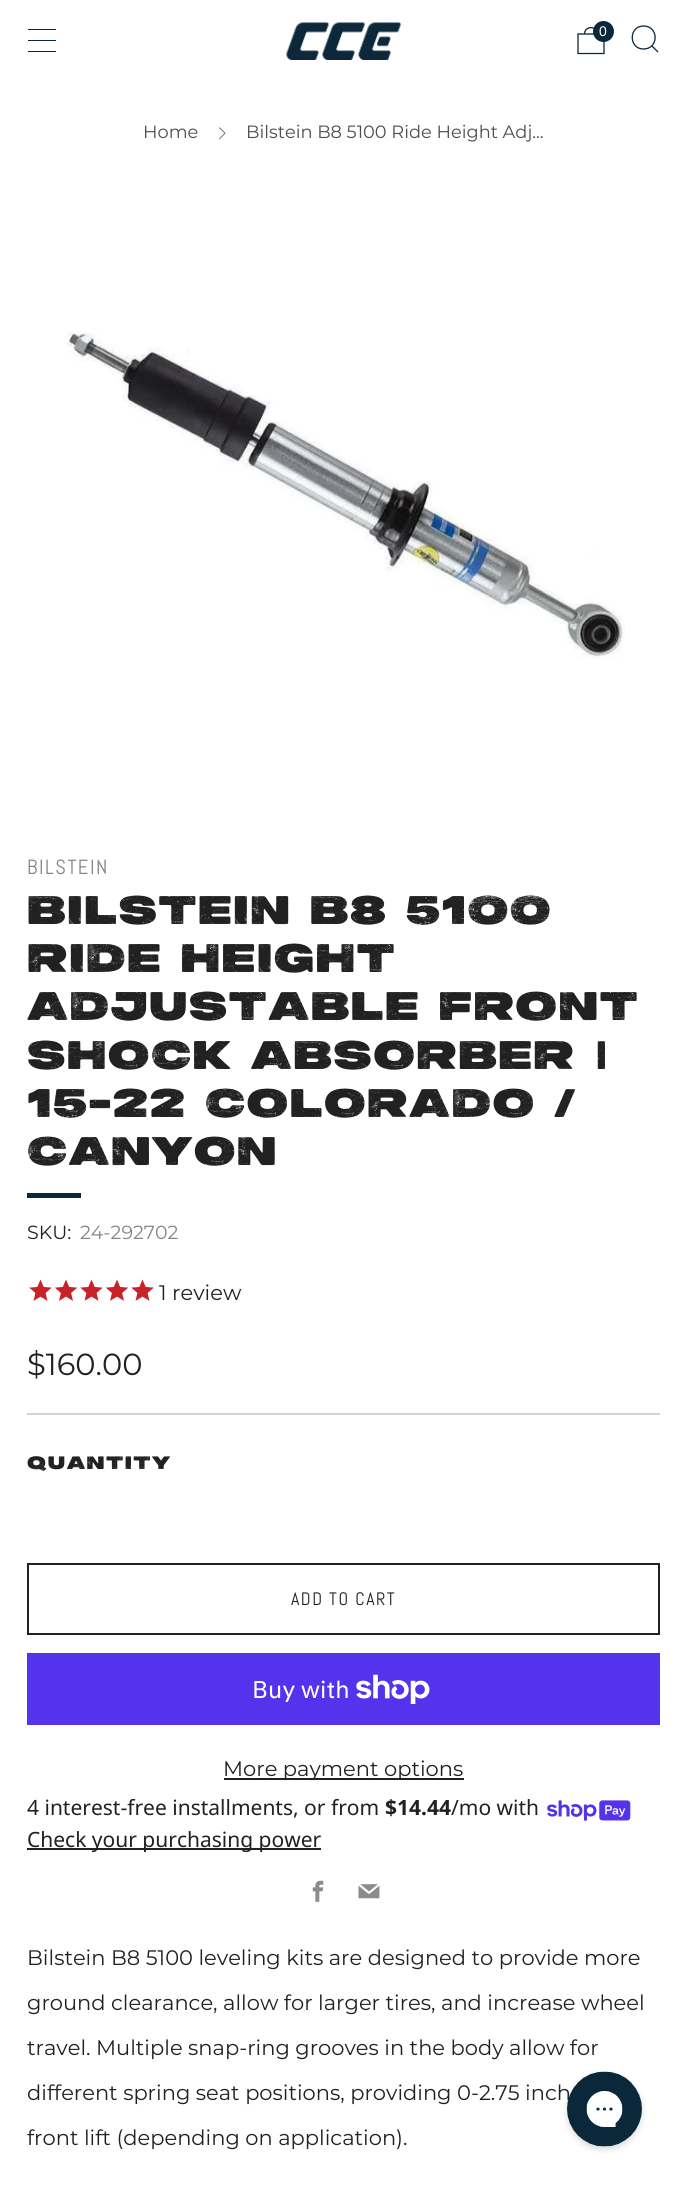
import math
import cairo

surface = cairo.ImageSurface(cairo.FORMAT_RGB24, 686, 2186)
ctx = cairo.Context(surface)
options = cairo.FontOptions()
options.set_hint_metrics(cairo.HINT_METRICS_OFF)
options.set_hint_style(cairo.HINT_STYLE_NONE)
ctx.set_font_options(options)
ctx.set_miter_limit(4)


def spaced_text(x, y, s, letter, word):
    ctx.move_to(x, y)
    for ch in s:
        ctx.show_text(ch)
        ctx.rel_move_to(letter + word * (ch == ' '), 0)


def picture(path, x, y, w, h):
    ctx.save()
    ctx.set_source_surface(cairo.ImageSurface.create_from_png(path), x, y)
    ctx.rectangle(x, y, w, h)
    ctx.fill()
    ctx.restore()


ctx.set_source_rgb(1, 1, 1)
ctx.paint()
ctx.set_source_rgb(0.043, 0.157, 0.227)
ctx.rectangle(28, 29, 28, 1)
ctx.fill()
ctx.rectangle(28, 40, 28, 1)
ctx.fill()
ctx.rectangle(28, 51, 28, 1)
ctx.fill()
picture("img1.png", 286, 22, 115, 38)
ctx.new_path()
ctx.move_to(578, 34)
ctx.line_to(604, 34)
ctx.line_to(604, 53.5)
ctx.line_to(578, 53.5)
ctx.close_path()
ctx.move_to(597.5, 34)
ctx.curve_to(597.5, 25.5, 584.5, 25.5, 584.5, 34)
ctx.set_line_width(1.3)
ctx.stroke()
ctx.arc(603.5, 31.5, 10.5, 0, 2 * math.pi)
ctx.fill()
ctx.select_font_face("Liberation Sans")
ctx.set_font_size(14)
ctx.set_source_rgb(1, 1, 1)
ctx.move_to(599, 36)
ctx.show_text("0")
ctx.new_path()
ctx.move_to(643.5, 49)
ctx.curve_to(659, 49, 659, 26, 643.5, 26)
ctx.curve_to(628.5, 26, 628.5, 49, 643.5, 49)
ctx.close_path()
ctx.move_to(652, 46)
ctx.line_to(658, 52)
ctx.set_source_rgb(0.043, 0.157, 0.227)
ctx.stroke()
ctx.select_font_face("Montserrat")
ctx.set_font_size(17.8)
ctx.set_source_rgb(0.302, 0.302, 0.302)
ctx.move_to(143, 138)
ctx.show_text("Home")
picture("img2.png", 219, 127, 7, 13)
ctx.move_to(246, 138)
ctx.show_text("Bilstein B8 5100 Ride Height Adj...")
picture("img3.png", 67, 332, 558, 327)
ctx.select_font_face("Abel")
ctx.set_font_size(20.5)
ctx.set_source_rgb(0.522, 0.522, 0.522)
spaced_text(27, 874, "BILSTEIN", 1.5, 0)
ctx.select_font_face("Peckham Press")
ctx.set_font_size(39.9)
ctx.set_source_rgb(0.129, 0.129, 0.129)
spaced_text(27, 924, "BILSTEIN B8 5100", 1.5, 0)
spaced_text(27, 972, "RIDE HEIGHT", 1.5, 0)
spaced_text(27, 1020, "ADJUSTABLE FRONT", 1.5, 0)
spaced_text(27, 1069, "SHOCK ABSORBER |", 1.5, 0)
spaced_text(27, 1117, "15-22 COLORADO /", 1.5, 0)
spaced_text(27, 1165, "CANYON", 1.5, 0)
ctx.set_source_rgb(0.043, 0.157, 0.227)
ctx.rectangle(27, 1193, 54, 5)
ctx.fill()
ctx.select_font_face("Montserrat")
ctx.set_font_size(19)
ctx.set_source_rgb(0.129, 0.129, 0.129)
ctx.move_to(27, 1239)
ctx.show_text("SKU:")
ctx.set_source_rgb(0.522, 0.522, 0.522)
ctx.move_to(80, 1239)
ctx.show_text("24-292702")
picture("img4.png", 29, 1279, 23, 22)
picture("img5.png", 54, 1279, 24, 22)
picture("img4.png", 80, 1279, 23, 22)
picture("img5.png", 105, 1279, 24, 22)
picture("img4.png", 131, 1279, 23, 22)
ctx.set_font_size(21)
ctx.set_source_rgb(0.129, 0.129, 0.129)
ctx.move_to(159, 1300)
ctx.show_text("1 review")
ctx.set_font_size(30.5)
ctx.move_to(27, 1375)
ctx.show_text("$160.00")
ctx.set_source_rgb(0.827, 0.827, 0.827)
ctx.rectangle(27, 1413, 633, 2)
ctx.fill()
ctx.select_font_face("Peckham Press")
ctx.set_font_size(18)
ctx.set_source_rgb(0.129, 0.129, 0.129)
spaced_text(27, 1469, "QUANTITY", 1.5, 0)
ctx.rectangle(28, 1564, 631, 70)
ctx.set_line_width(2)
ctx.stroke()
ctx.select_font_face("Abel")
spaced_text(291, 1605, "ADD TO CART", 1.5, 0)
ctx.new_path()
ctx.move_to(337, 1592.5)
ctx.curve_to(341, 1588.5, 347.5, 1588.5, 351.5, 1592.5)
ctx.move_to(337, 1592.5)
ctx.curve_to(341, 1588.5, 347.5, 1588.5, 351.5, 1592.5)
ctx.move_to(337, 1592.5)
ctx.curve_to(341, 1588.5, 347.5, 1588.5, 351.5, 1592.5)
ctx.move_to(337, 1592.5)
ctx.curve_to(341, 1588.5, 347.5, 1588.5, 351.5, 1592.5)
ctx.set_source_rgb(1, 1, 1)
ctx.set_line_width(1.5)
ctx.stroke()
ctx.set_source_rgb(0.329, 0.2, 0.922)
ctx.rectangle(27, 1653, 633, 72)
ctx.fill()
ctx.select_font_face("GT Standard")
ctx.set_font_size(24)
ctx.set_source_rgb(1, 1, 1)
ctx.move_to(252, 1698)
ctx.show_text("Buy with")
picture("img6.png", 356, 1674, 74, 30)
ctx.set_source_rgb(0.129, 0.129, 0.129)
ctx.rectangle(224, 1778, 240, 2)
ctx.fill()
ctx.select_font_face("Montserrat")
ctx.set_font_size(21)
ctx.move_to(223, 1776)
ctx.show_text("More payment options")
ctx.select_font_face("Noto Sans")
ctx.move_to(27, 1815)
ctx.show_text("4 interest-free installments, or from")
ctx.select_font_face("Noto Sans", cairo.FONT_SLANT_NORMAL, cairo.FONT_WEIGHT_BOLD)
ctx.move_to(385, 1815)
ctx.show_text("$14.44")
ctx.select_font_face("Noto Sans")
ctx.move_to(451, 1815)
ctx.show_text("/mo with")
picture("img7.png", 547, 1800, 84, 21)
ctx.rectangle(27, 1848, 294, 2)
ctx.fill()
ctx.move_to(27, 1847)
ctx.show_text("Check your purchasing power")
picture("img8.png", 312, 1880, 12, 22)
picture("img9.png", 358, 1884, 22, 15)
ctx.select_font_face("Montserrat")
ctx.move_to(27, 1965)
ctx.show_text("Bilstein B8 5100 leveling kits are designed to provide more")
ctx.move_to(27, 2010)
ctx.show_text("ground clearance, allow for larger tires, and increase wheel")
ctx.move_to(27, 2055)
ctx.show_text("travel. Multiple snap-ring grooves in the body allow for")
ctx.move_to(27, 2100)
ctx.show_text("different spring seat positions, providing 0-2.75 inch")
ctx.move_to(27, 2145)
ctx.show_text("front lift (depending on application).")
picture("img10.png", 564, 2071, 81, 82)
surface.write_to_png("page.png")
